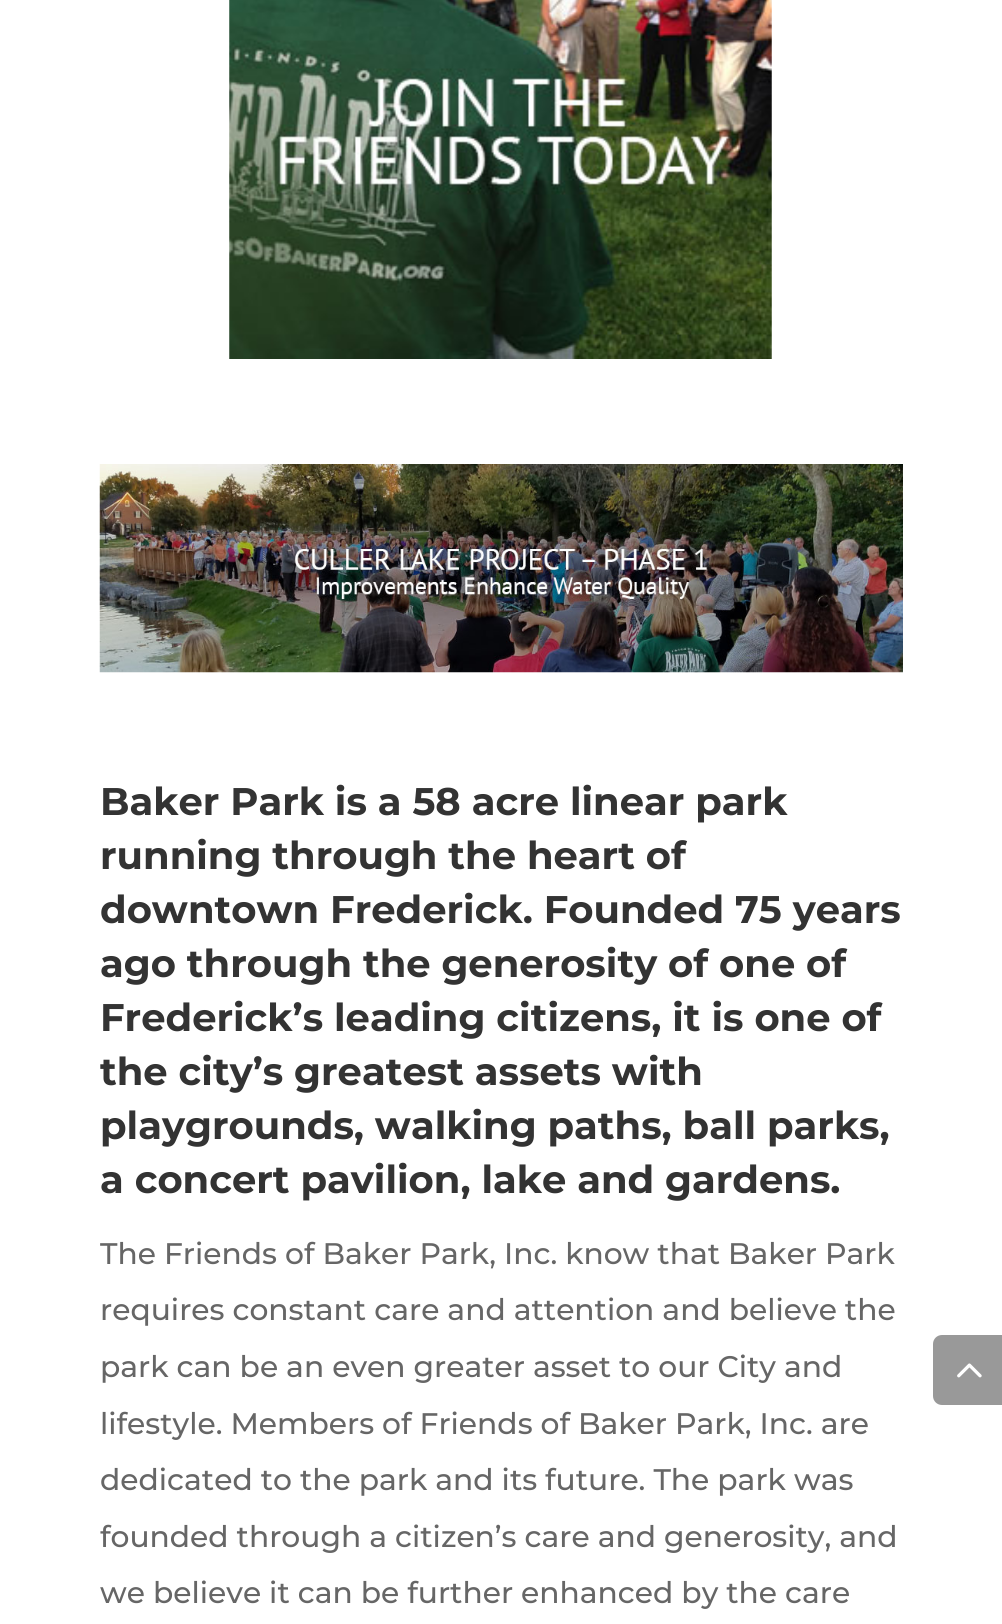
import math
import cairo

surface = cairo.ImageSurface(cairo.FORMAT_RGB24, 1002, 1624)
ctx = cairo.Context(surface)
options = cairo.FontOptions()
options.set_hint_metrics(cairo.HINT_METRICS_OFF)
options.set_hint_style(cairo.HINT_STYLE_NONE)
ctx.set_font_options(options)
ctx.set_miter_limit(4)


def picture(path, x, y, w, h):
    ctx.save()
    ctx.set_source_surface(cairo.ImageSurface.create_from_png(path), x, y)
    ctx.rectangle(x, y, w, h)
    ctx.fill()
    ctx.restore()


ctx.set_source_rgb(1, 1, 1)
ctx.paint()
picture("img1.png", 229, 0, 543, 359)
picture("img2.png", 99, 464, 804, 209)
ctx.select_font_face("Montserrat", cairo.FONT_SLANT_NORMAL, cairo.FONT_WEIGHT_BOLD)
ctx.set_font_size(38.5)
ctx.set_source_rgb(0.2, 0.2, 0.2)
ctx.move_to(100, 815)
ctx.show_text("Baker Park is a 58 acre linear park")
ctx.move_to(100, 869)
ctx.show_text("running through the heart of")
ctx.move_to(100, 923)
ctx.show_text("downtown Frederick. Founded 75 years")
ctx.move_to(100, 977)
ctx.show_text("ago through the generosity of one of")
ctx.move_to(100, 1031)
ctx.show_text("Frederick’s leading citizens, it is one of")
ctx.move_to(100, 1085)
ctx.show_text("the city’s greatest assets with")
ctx.move_to(100, 1139)
ctx.show_text("playgrounds, walking paths, ball parks,")
ctx.move_to(100, 1193)
ctx.show_text("a concert pavilion, lake and gardens.")
ctx.select_font_face("Montserrat Medium")
ctx.set_font_size(29.75)
ctx.set_source_rgb(0.4, 0.4, 0.4)
ctx.move_to(100, 1264)
ctx.show_text("The Friends of Baker Park, Inc. know that Baker Park")
ctx.move_to(100, 1320)
ctx.show_text("requires constant care and attention and believe the")
ctx.move_to(100, 1377)
ctx.show_text("park can be an even greater asset to our City and")
ctx.move_to(100, 1434)
ctx.show_text("lifestyle. Members of Friends of Baker Park, Inc. are")
ctx.move_to(100, 1490)
ctx.show_text("dedicated to the park and its future. The park was")
ctx.move_to(100, 1547)
ctx.show_text("founded through a citizen’s care and generosity, and")
ctx.move_to(100, 1603)
ctx.show_text("we believe it can be further enhanced by the care")
ctx.set_source_rgb(0.6, 0.6, 0.6)
ctx.new_path()
ctx.move_to(942, 1335)
ctx.line_to(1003, 1335)
ctx.line_to(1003, 1405)
ctx.line_to(942, 1405)
ctx.curve_to(937, 1405, 933, 1401, 933, 1396)
ctx.line_to(933, 1344)
ctx.curve_to(933, 1339, 937, 1335, 942, 1335)
ctx.close_path()
ctx.fill()
picture("img3.png", 957, 1363, 25, 15)
surface.write_to_png("page.png")
